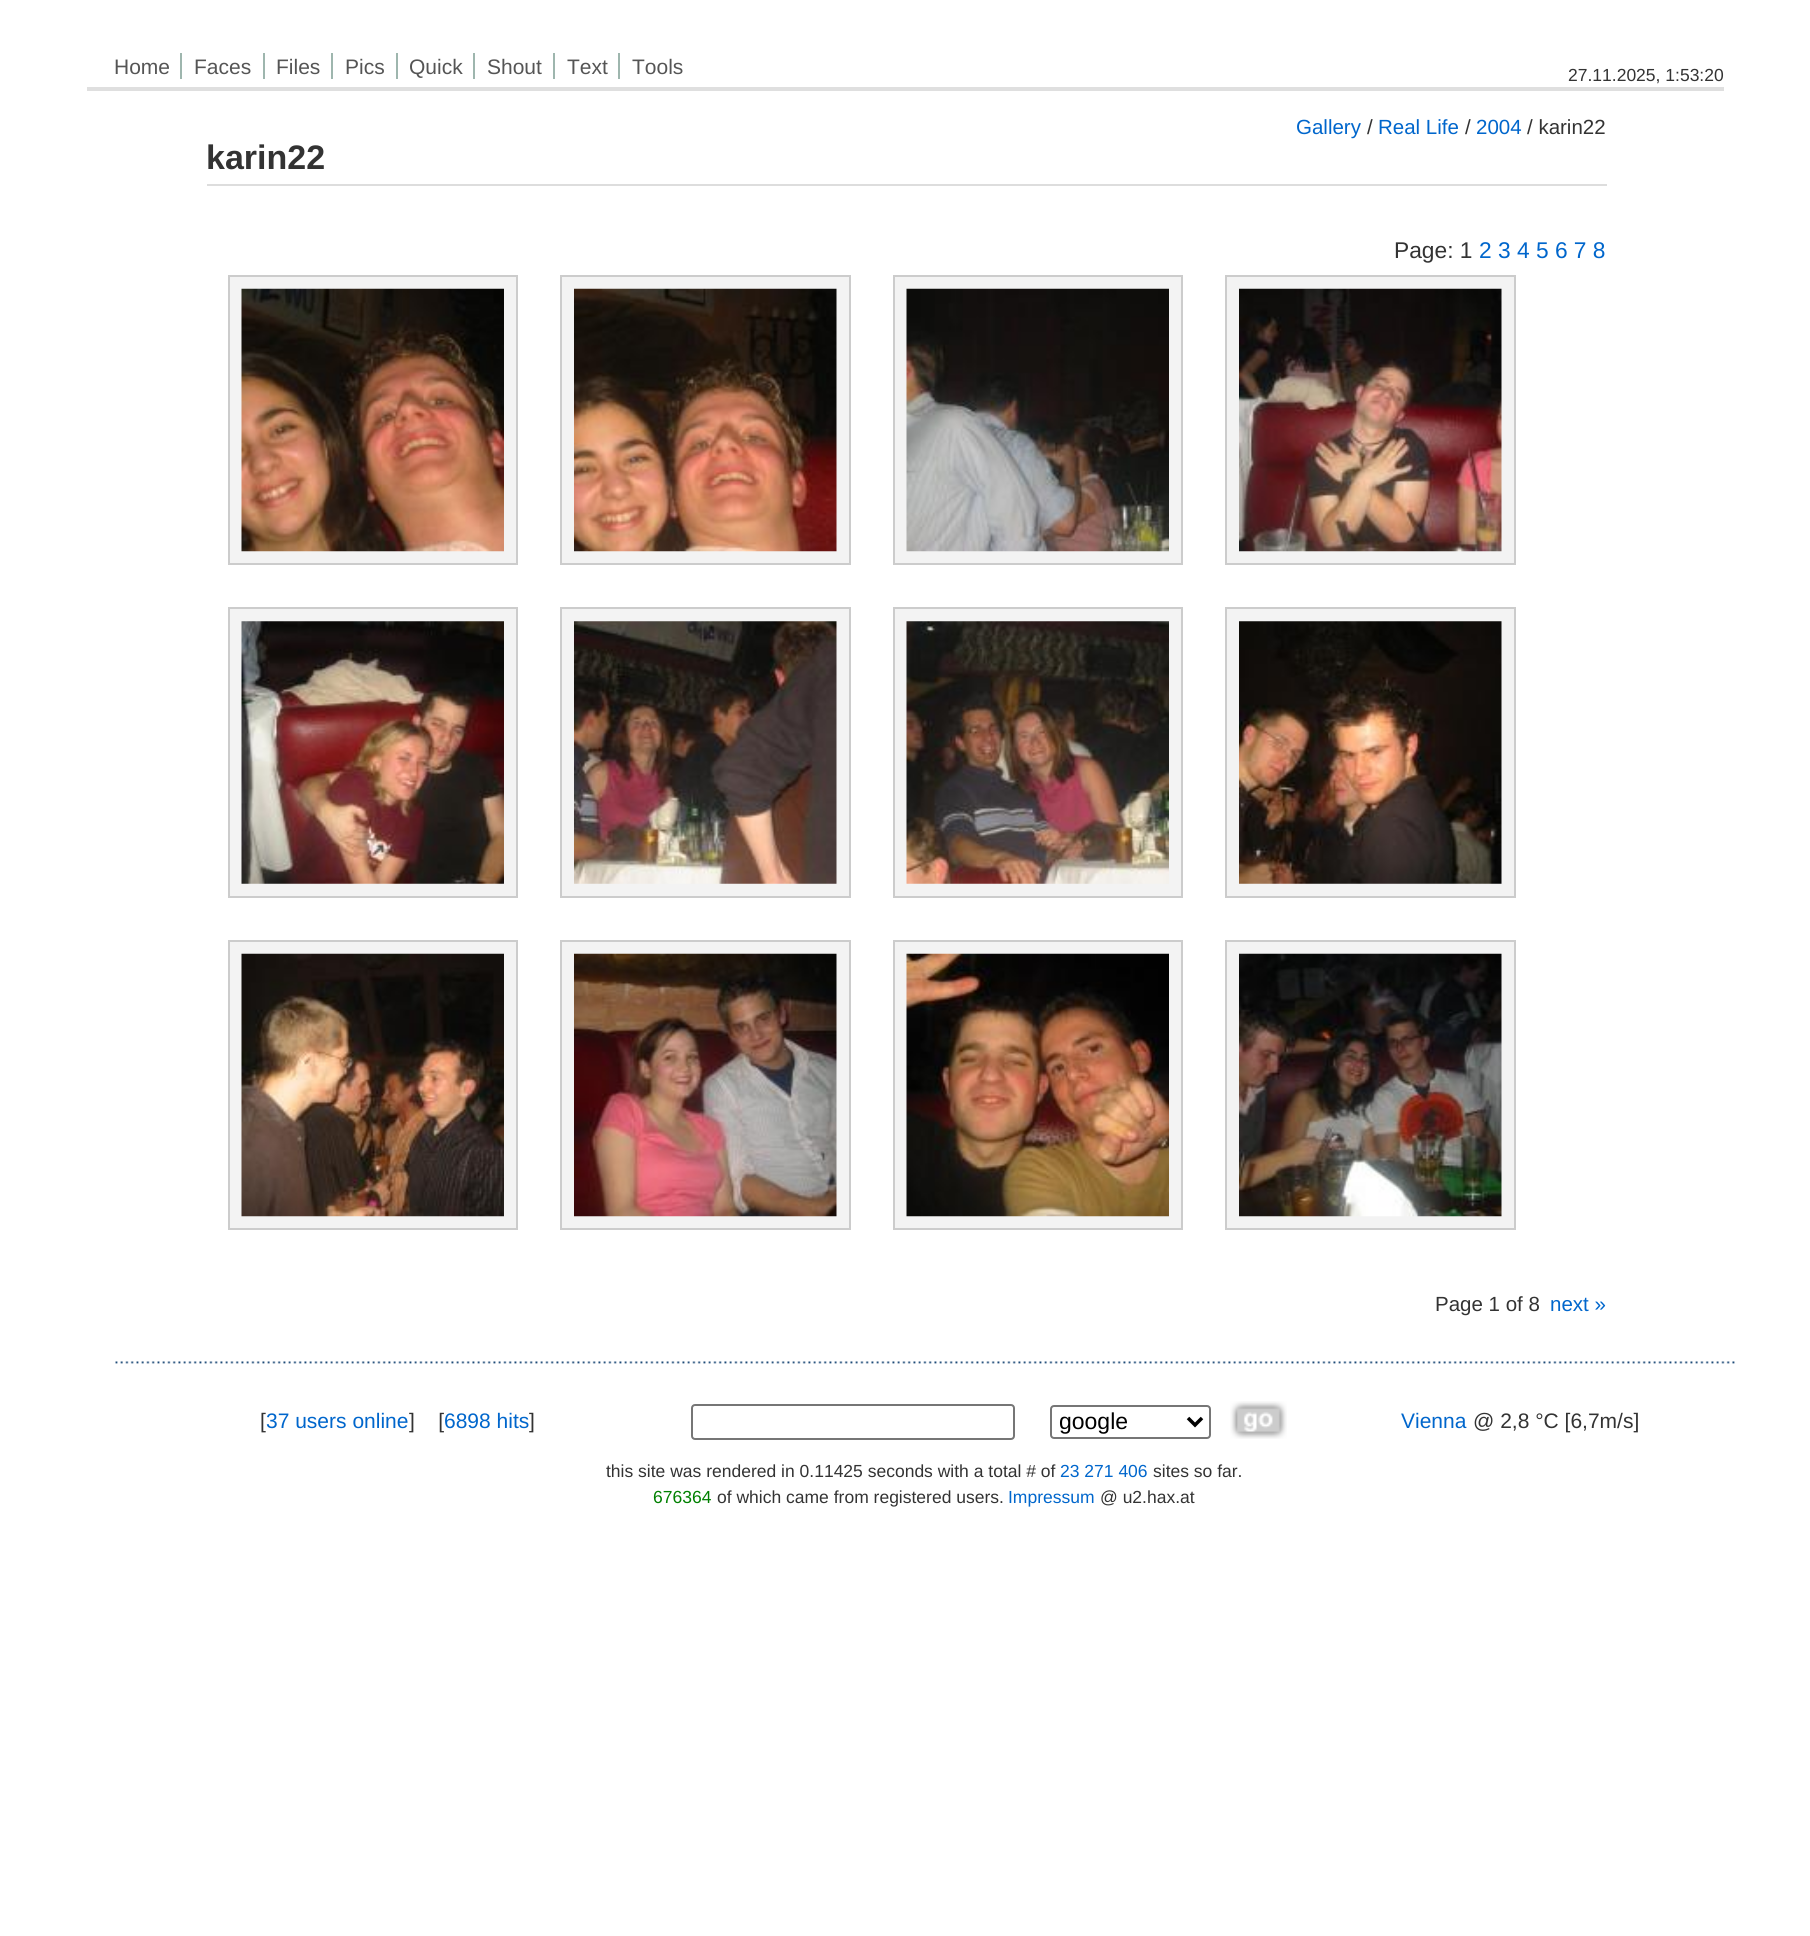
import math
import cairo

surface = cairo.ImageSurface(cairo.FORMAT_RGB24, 1810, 1936)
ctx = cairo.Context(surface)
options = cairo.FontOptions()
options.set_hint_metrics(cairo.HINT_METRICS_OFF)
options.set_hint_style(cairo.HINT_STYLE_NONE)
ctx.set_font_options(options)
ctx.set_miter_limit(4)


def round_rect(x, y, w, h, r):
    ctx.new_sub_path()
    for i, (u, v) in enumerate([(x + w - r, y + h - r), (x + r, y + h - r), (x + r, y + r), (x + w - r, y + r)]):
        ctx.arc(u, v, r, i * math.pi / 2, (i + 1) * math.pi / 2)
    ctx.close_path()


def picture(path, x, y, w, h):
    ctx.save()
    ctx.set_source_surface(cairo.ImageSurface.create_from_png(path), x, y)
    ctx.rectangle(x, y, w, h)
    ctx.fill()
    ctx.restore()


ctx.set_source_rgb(1, 1, 1)
ctx.paint()
ctx.select_font_face("Liberation Sans")
ctx.set_font_size(21)
ctx.set_source_rgb(0.333, 0.333, 0.333)
ctx.move_to(114, 74)
ctx.show_text("Home")
ctx.set_source_rgb(0.62, 0.714, 0.682)
ctx.rectangle(180, 53, 2, 26)
ctx.fill()
ctx.set_source_rgb(0.333, 0.333, 0.333)
ctx.move_to(194, 74)
ctx.show_text("Faces")
ctx.set_source_rgb(0.62, 0.714, 0.682)
ctx.rectangle(263, 53, 2, 26)
ctx.fill()
ctx.set_source_rgb(0.333, 0.333, 0.333)
ctx.move_to(276, 74)
ctx.show_text("Files")
ctx.set_source_rgb(0.62, 0.714, 0.682)
ctx.rectangle(331, 53, 2, 26)
ctx.fill()
ctx.set_source_rgb(0.333, 0.333, 0.333)
ctx.move_to(345, 74)
ctx.show_text("Pics")
ctx.set_source_rgb(0.62, 0.714, 0.682)
ctx.rectangle(396, 53, 2, 26)
ctx.fill()
ctx.set_source_rgb(0.333, 0.333, 0.333)
ctx.move_to(409, 74)
ctx.show_text("Quick")
ctx.set_source_rgb(0.62, 0.714, 0.682)
ctx.rectangle(473, 53, 2, 26)
ctx.fill()
ctx.set_source_rgb(0.333, 0.333, 0.333)
ctx.move_to(487, 74)
ctx.show_text("Shout")
ctx.set_source_rgb(0.62, 0.714, 0.682)
ctx.rectangle(553, 53, 2, 26)
ctx.fill()
ctx.set_source_rgb(0.333, 0.333, 0.333)
ctx.move_to(567, 74)
ctx.show_text("Text")
ctx.set_source_rgb(0.62, 0.714, 0.682)
ctx.rectangle(618, 53, 2, 26)
ctx.fill()
ctx.set_source_rgb(0.333, 0.333, 0.333)
ctx.move_to(632, 74)
ctx.show_text("Tools")
ctx.set_font_size(17.5)
ctx.set_source_rgb(0.2, 0.2, 0.2)
ctx.move_to(1568, 81)
ctx.show_text("27.11.2025, 1:53:20")
ctx.set_source_rgb(0.875, 0.875, 0.875)
ctx.rectangle(87, 87, 1637, 4)
ctx.fill()
ctx.set_font_size(20.5)
ctx.set_source_rgb(0, 0.4, 0.8)
ctx.move_to(1296, 134)
ctx.show_text("Gallery")
ctx.set_source_rgb(0.2, 0.2, 0.2)
ctx.move_to(1367, 134)
ctx.show_text("/")
ctx.set_source_rgb(0, 0.4, 0.8)
ctx.move_to(1378, 134)
ctx.show_text("Real Life")
ctx.set_source_rgb(0.2, 0.2, 0.2)
ctx.move_to(1465, 134)
ctx.show_text("/")
ctx.set_source_rgb(0, 0.4, 0.8)
ctx.move_to(1476, 134)
ctx.show_text("2004")
ctx.set_source_rgb(0.2, 0.2, 0.2)
ctx.move_to(1527, 134)
ctx.show_text("/ karin22")
ctx.set_source_rgb(0.867, 0.867, 0.867)
ctx.rectangle(207, 184, 1400, 2)
ctx.fill()
ctx.select_font_face("Liberation Sans", cairo.FONT_SLANT_NORMAL, cairo.FONT_WEIGHT_BOLD)
ctx.set_font_size(34)
ctx.set_source_rgb(0.2, 0.2, 0.2)
ctx.move_to(206, 169)
ctx.show_text("karin22")
ctx.select_font_face("Liberation Sans")
ctx.set_font_size(22.75)
ctx.move_to(1394, 258)
ctx.show_text("Page: 1")
ctx.set_source_rgb(0, 0.4, 0.8)
ctx.move_to(1479, 258)
ctx.show_text("2 3 4 5 6 7 8")
ctx.set_source_rgb(0.953, 0.953, 0.953)
ctx.rectangle(229, 276, 288, 288)
ctx.fill_preserve()
ctx.set_source_rgb(0.8, 0.8, 0.8)
ctx.stroke()
picture("img1.png", 241, 288, 263, 264)
ctx.set_source_rgb(0.953, 0.953, 0.953)
ctx.rectangle(561, 276, 289, 288)
ctx.fill_preserve()
ctx.set_source_rgb(0.8, 0.8, 0.8)
ctx.stroke()
picture("img2.png", 574, 288, 263, 264)
ctx.set_source_rgb(0.953, 0.953, 0.953)
ctx.rectangle(894, 276, 288, 288)
ctx.fill_preserve()
ctx.set_source_rgb(0.8, 0.8, 0.8)
ctx.stroke()
picture("img3.png", 906, 288, 263, 264)
ctx.set_source_rgb(0.953, 0.953, 0.953)
ctx.rectangle(1226, 276, 289, 288)
ctx.fill_preserve()
ctx.set_source_rgb(0.8, 0.8, 0.8)
ctx.stroke()
picture("img4.png", 1239, 288, 263, 264)
ctx.set_source_rgb(0.953, 0.953, 0.953)
ctx.rectangle(229, 608, 288, 289)
ctx.fill_preserve()
ctx.set_source_rgb(0.8, 0.8, 0.8)
ctx.stroke()
picture("img5.png", 241, 621, 263, 263)
ctx.set_source_rgb(0.953, 0.953, 0.953)
ctx.rectangle(561, 608, 289, 289)
ctx.fill_preserve()
ctx.set_source_rgb(0.8, 0.8, 0.8)
ctx.stroke()
picture("img6.png", 574, 621, 263, 263)
ctx.set_source_rgb(0.953, 0.953, 0.953)
ctx.rectangle(894, 608, 288, 289)
ctx.fill_preserve()
ctx.set_source_rgb(0.8, 0.8, 0.8)
ctx.stroke()
picture("img7.png", 906, 621, 263, 263)
ctx.set_source_rgb(0.953, 0.953, 0.953)
ctx.rectangle(1226, 608, 289, 289)
ctx.fill_preserve()
ctx.set_source_rgb(0.8, 0.8, 0.8)
ctx.stroke()
picture("img8.png", 1239, 621, 263, 263)
ctx.set_source_rgb(0.953, 0.953, 0.953)
ctx.rectangle(229, 941, 288, 288)
ctx.fill_preserve()
ctx.set_source_rgb(0.8, 0.8, 0.8)
ctx.stroke()
picture("img9.png", 241, 953, 263, 264)
ctx.set_source_rgb(0.953, 0.953, 0.953)
ctx.rectangle(561, 941, 289, 288)
ctx.fill_preserve()
ctx.set_source_rgb(0.8, 0.8, 0.8)
ctx.stroke()
picture("img10.png", 574, 953, 263, 264)
ctx.set_source_rgb(0.953, 0.953, 0.953)
ctx.rectangle(894, 941, 288, 288)
ctx.fill_preserve()
ctx.set_source_rgb(0.8, 0.8, 0.8)
ctx.stroke()
picture("img11.png", 906, 953, 263, 264)
ctx.set_source_rgb(0.953, 0.953, 0.953)
ctx.rectangle(1226, 941, 289, 288)
ctx.fill_preserve()
ctx.set_source_rgb(0.8, 0.8, 0.8)
ctx.stroke()
picture("img12.png", 1239, 953, 263, 264)
ctx.set_font_size(20.5)
ctx.set_source_rgb(0.2, 0.2, 0.2)
ctx.move_to(1435, 1311)
ctx.show_text("Page 1 of 8")
ctx.set_source_rgb(0, 0.4, 0.8)
ctx.move_to(1550, 1311)
ctx.show_text("next »")
picture("img13.png", 115, 1361, 1620, 3)
ctx.set_font_size(21)
ctx.set_source_rgb(0.2, 0.2, 0.2)
ctx.move_to(260, 1428)
ctx.show_text("[")
ctx.set_source_rgb(0, 0.4, 0.8)
ctx.move_to(266, 1428)
ctx.show_text("37 users online")
ctx.set_source_rgb(0.2, 0.2, 0.2)
ctx.move_to(409, 1428)
ctx.show_text("]    [")
ctx.set_source_rgb(0, 0.4, 0.8)
ctx.move_to(444, 1428)
ctx.show_text("6898 hits")
ctx.set_source_rgb(0.2, 0.2, 0.2)
ctx.move_to(529, 1428)
ctx.show_text("]")
round_rect(692, 1405, 322, 34, 3)
ctx.set_source_rgb(0.463, 0.463, 0.463)
ctx.stroke()
round_rect(1051, 1406, 159, 32, 3)
ctx.stroke()
ctx.new_path()
ctx.move_to(1188, 1418)
ctx.line_to(1195, 1425)
ctx.line_to(1202, 1418)
ctx.set_source_rgb(0, 0, 0)
ctx.set_line_width(3.5)
ctx.stroke()
ctx.set_font_size(23)
ctx.move_to(1059, 1429)
ctx.show_text("google")
picture("img14.png", 1230, 1401, 57, 38)
ctx.set_font_size(21)
ctx.set_source_rgb(0, 0.4, 0.8)
ctx.move_to(1401, 1428)
ctx.show_text("Vienna")
ctx.set_source_rgb(0.2, 0.2, 0.2)
ctx.move_to(1473, 1428)
ctx.show_text("@ 2,8 °C [6,7m/s]")
ctx.set_font_size(17.5)
ctx.move_to(606, 1477)
ctx.show_text("this site was rendered in 0.11425 seconds with a total # of")
ctx.set_source_rgb(0, 0.4, 0.8)
ctx.move_to(1060, 1477)
ctx.show_text("23 271 406")
ctx.set_source_rgb(0.2, 0.2, 0.2)
ctx.move_to(1153, 1477)
ctx.show_text("sites so far.")
ctx.set_source_rgb(0, 0.502, 0)
ctx.move_to(653, 1503)
ctx.show_text("676364")
ctx.set_source_rgb(0.2, 0.2, 0.2)
ctx.move_to(717, 1503)
ctx.show_text("of which came from registered users.")
ctx.set_source_rgb(0, 0.4, 0.8)
ctx.move_to(1008, 1503)
ctx.show_text("Impressum")
ctx.set_source_rgb(0.2, 0.2, 0.2)
ctx.move_to(1100, 1503)
ctx.show_text("@ u2.hax.at")
surface.write_to_png("page.png")
